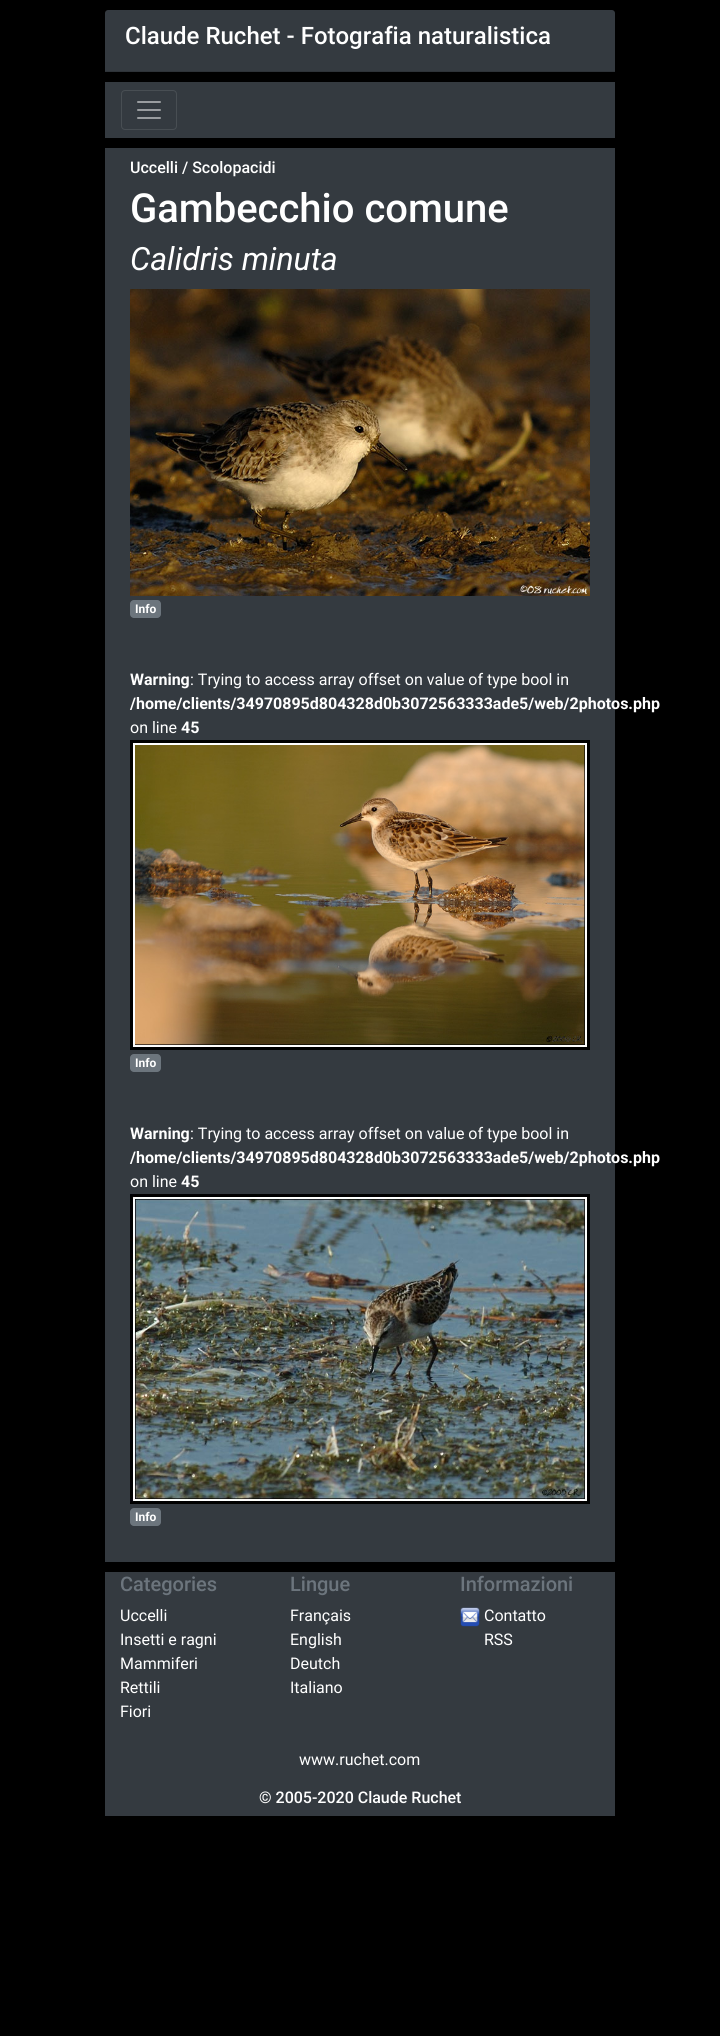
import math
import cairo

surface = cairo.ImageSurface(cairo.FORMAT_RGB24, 720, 2036)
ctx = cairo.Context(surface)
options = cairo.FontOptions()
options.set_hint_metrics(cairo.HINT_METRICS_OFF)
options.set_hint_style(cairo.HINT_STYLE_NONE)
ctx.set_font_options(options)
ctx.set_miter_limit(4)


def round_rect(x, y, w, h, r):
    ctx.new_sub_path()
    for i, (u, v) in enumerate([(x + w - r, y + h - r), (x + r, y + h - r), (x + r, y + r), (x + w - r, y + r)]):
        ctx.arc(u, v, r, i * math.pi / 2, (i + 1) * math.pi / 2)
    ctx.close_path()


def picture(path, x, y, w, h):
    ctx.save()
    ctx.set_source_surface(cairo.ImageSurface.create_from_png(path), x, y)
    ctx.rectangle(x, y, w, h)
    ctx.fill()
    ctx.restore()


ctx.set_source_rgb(0, 0, 0)
ctx.paint()
ctx.set_source_rgb(0.204, 0.227, 0.251)
ctx.new_path()
ctx.move_to(108, 10)
ctx.line_to(612, 10)
ctx.curve_to(613.5, 10, 615, 11.5, 615, 13)
ctx.line_to(615, 72)
ctx.line_to(105, 72)
ctx.line_to(105, 13)
ctx.curve_to(105, 11.5, 106.5, 10, 108, 10)
ctx.close_path()
ctx.fill()
ctx.set_source_rgb(0.18, 0.2, 0.22)
ctx.rectangle(105, 71, 510, 1)
ctx.fill()
ctx.select_font_face("Roboto Medium")
ctx.set_font_size(24)
ctx.set_source_rgb(1, 1, 1)
ctx.move_to(125, 44)
ctx.show_text("Claude Ruchet - Fotografia naturalistica")
ctx.set_source_rgb(0.204, 0.227, 0.251)
ctx.rectangle(105, 82, 510, 56)
ctx.fill()
round_rect(121.5, 90.5, 55, 39, 3.5)
ctx.set_source_rgb(0.282, 0.306, 0.325)
ctx.set_line_width(1)
ctx.stroke()
picture("img1.png", 137, 101, 24, 18)
ctx.set_source_rgb(0.204, 0.227, 0.251)
ctx.rectangle(105, 148, 510, 1414)
ctx.fill()
ctx.set_font_size(16)
ctx.set_source_rgb(1, 1, 1)
ctx.move_to(130, 173)
ctx.show_text("Uccelli / Scolopacidi")
ctx.set_font_size(40)
ctx.move_to(130, 222)
ctx.show_text("Gambecchio comune")
ctx.select_font_face("Roboto", cairo.FONT_SLANT_ITALIC)
ctx.set_font_size(32)
ctx.move_to(130, 270)
ctx.show_text("Calidris minuta")
picture("img2.png", 130, 289, 460, 307)
ctx.set_source_rgb(0.424, 0.459, 0.49)
round_rect(130, 600, 31, 18, 4)
ctx.fill()
ctx.select_font_face("Roboto", cairo.FONT_SLANT_NORMAL, cairo.FONT_WEIGHT_BOLD)
ctx.set_font_size(12)
ctx.set_source_rgb(1, 1, 1)
ctx.move_to(135, 613)
ctx.show_text("Info")
ctx.set_font_size(16)
ctx.move_to(130, 685)
ctx.show_text("Warning")
ctx.select_font_face("Roboto")
ctx.move_to(190, 685)
ctx.show_text(": Trying to access array offset on value of type bool in")
ctx.select_font_face("Roboto", cairo.FONT_SLANT_NORMAL, cairo.FONT_WEIGHT_BOLD)
ctx.move_to(130, 709)
ctx.show_text("/home/clients/34970895d804328d0b3072563333ade5/web/2photos.php")
ctx.select_font_face("Roboto")
ctx.move_to(130, 733)
ctx.show_text("on line")
ctx.select_font_face("Roboto", cairo.FONT_SLANT_NORMAL, cairo.FONT_WEIGHT_BOLD)
ctx.move_to(181, 733)
ctx.show_text("45")
picture("img3.png", 130, 740, 460, 310)
ctx.set_source_rgb(0.424, 0.459, 0.49)
round_rect(130, 1054, 31, 18, 4)
ctx.fill()
ctx.set_font_size(12)
ctx.set_source_rgb(1, 1, 1)
ctx.move_to(135, 1067)
ctx.show_text("Info")
ctx.set_font_size(16)
ctx.move_to(130, 1139)
ctx.show_text("Warning")
ctx.select_font_face("Roboto")
ctx.move_to(190, 1139)
ctx.show_text(": Trying to access array offset on value of type bool in")
ctx.select_font_face("Roboto", cairo.FONT_SLANT_NORMAL, cairo.FONT_WEIGHT_BOLD)
ctx.move_to(130, 1163)
ctx.show_text("/home/clients/34970895d804328d0b3072563333ade5/web/2photos.php")
ctx.select_font_face("Roboto")
ctx.move_to(130, 1187)
ctx.show_text("on line")
ctx.select_font_face("Roboto", cairo.FONT_SLANT_NORMAL, cairo.FONT_WEIGHT_BOLD)
ctx.move_to(181, 1187)
ctx.show_text("45")
picture("img4.png", 130, 1194, 460, 310)
ctx.set_source_rgb(0.424, 0.459, 0.49)
round_rect(130, 1508, 31, 18, 4)
ctx.fill()
ctx.set_font_size(12)
ctx.set_source_rgb(1, 1, 1)
ctx.move_to(135, 1521)
ctx.show_text("Info")
ctx.set_source_rgb(0.204, 0.227, 0.251)
ctx.rectangle(105, 1572, 510, 244)
ctx.fill()
ctx.select_font_face("Roboto Medium")
ctx.set_font_size(20)
ctx.set_source_rgb(0.424, 0.459, 0.49)
ctx.move_to(120, 1591)
ctx.show_text("Categories")
ctx.select_font_face("Roboto")
ctx.set_font_size(16)
ctx.set_source_rgb(1, 1, 1)
ctx.move_to(120, 1621)
ctx.show_text("Uccelli")
ctx.move_to(120, 1645)
ctx.show_text("Insetti e ragni")
ctx.move_to(120, 1669)
ctx.show_text("Mammiferi")
ctx.move_to(120, 1693)
ctx.show_text("Rettili")
ctx.move_to(120, 1717)
ctx.show_text("Fiori")
ctx.select_font_face("Roboto Medium")
ctx.set_font_size(20)
ctx.set_source_rgb(0.424, 0.459, 0.49)
ctx.move_to(290, 1591)
ctx.show_text("Lingue")
ctx.select_font_face("Roboto")
ctx.set_font_size(16)
ctx.set_source_rgb(1, 1, 1)
ctx.move_to(290, 1621)
ctx.show_text("Français")
ctx.move_to(290, 1645)
ctx.show_text("English")
ctx.move_to(290, 1669)
ctx.show_text("Deutch")
ctx.move_to(290, 1693)
ctx.show_text("Italiano")
ctx.select_font_face("Roboto Medium")
ctx.set_font_size(20)
ctx.set_source_rgb(0.424, 0.459, 0.49)
ctx.move_to(460, 1591)
ctx.show_text("Informazioni")
picture("img5.png", 460, 1607, 20, 20)
ctx.select_font_face("Roboto")
ctx.set_font_size(16)
ctx.set_source_rgb(1, 1, 1)
ctx.move_to(484, 1621)
ctx.show_text("Contatto")
ctx.move_to(484, 1645)
ctx.show_text("RSS")
ctx.move_to(299, 1765)
ctx.show_text("www.ruchet.com")
ctx.select_font_face("Roboto Medium")
ctx.move_to(259, 1803)
ctx.show_text("© 2005-2020 Claude Ruchet")
surface.write_to_png("page.png")
